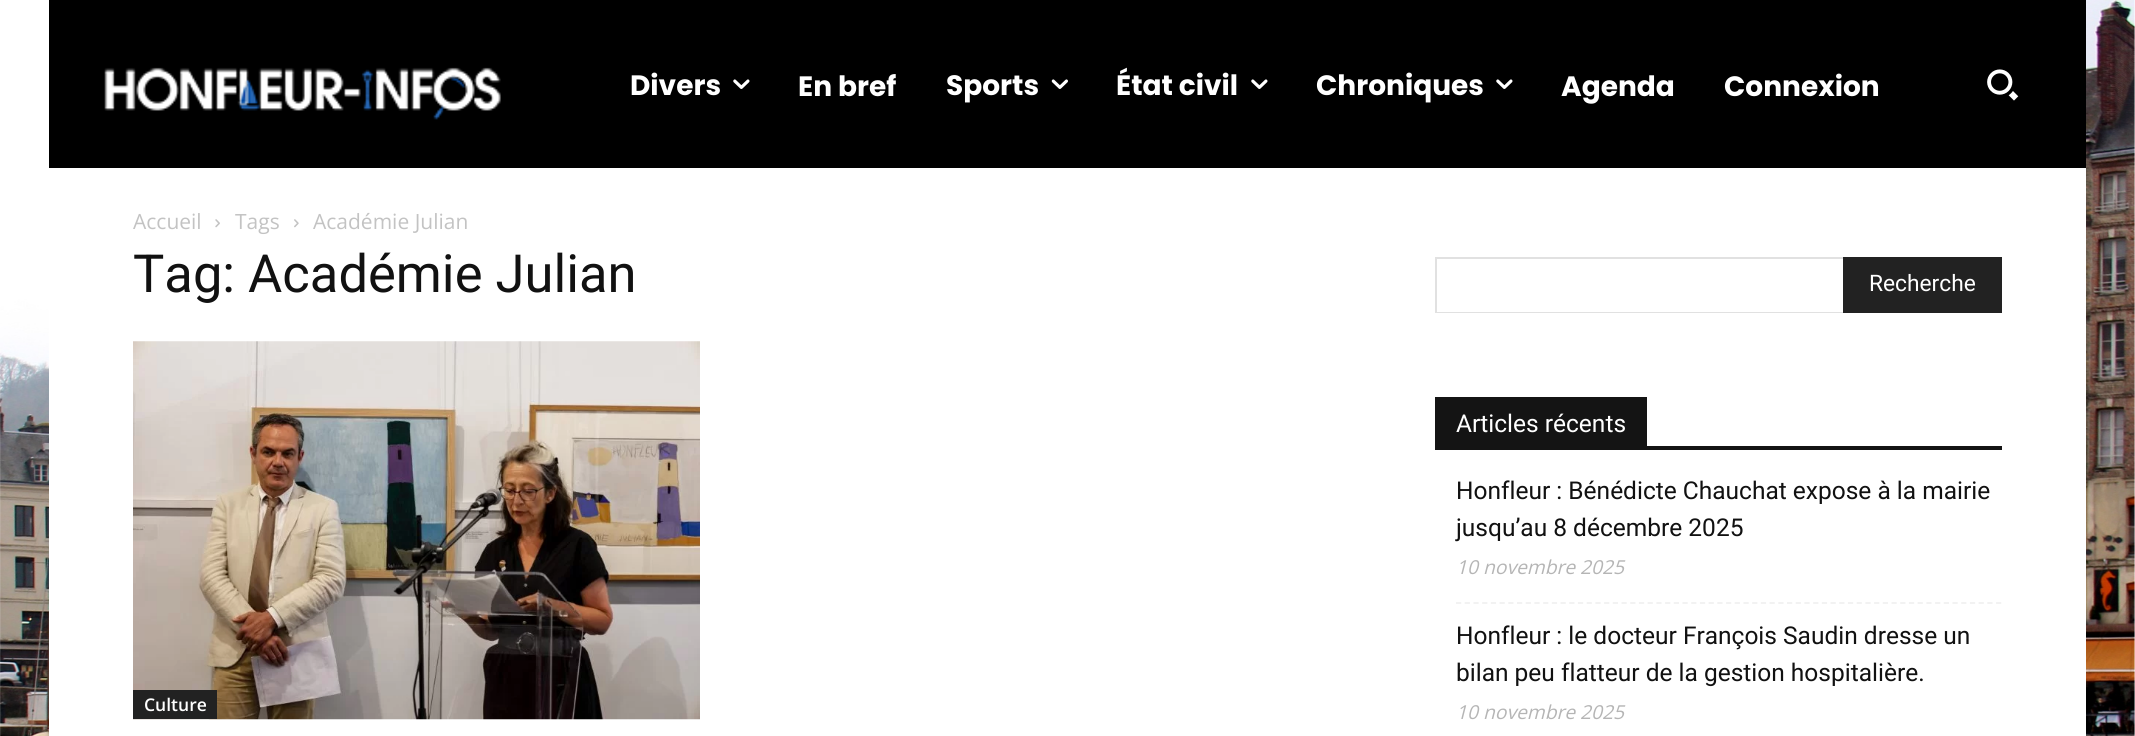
import math
import cairo

surface = cairo.ImageSurface(cairo.FORMAT_RGB24, 2135, 736)
ctx = cairo.Context(surface)
options = cairo.FontOptions()
options.set_hint_metrics(cairo.HINT_METRICS_OFF)
options.set_hint_style(cairo.HINT_STYLE_NONE)
ctx.set_font_options(options)
ctx.set_miter_limit(4)


def picture(path, x, y, w, h):
    ctx.save()
    ctx.set_source_surface(cairo.ImageSurface.create_from_png(path), x, y)
    ctx.rectangle(x, y, w, h)
    ctx.fill()
    ctx.restore()


ctx.set_source_rgb(1, 1, 1)
ctx.paint()
picture("img1.png", 0, 0, 2135, 736)
ctx.set_source_rgb(0, 0, 0)
ctx.rectangle(49, 0, 2037, 168)
ctx.fill()
picture("img2.png", 104, 67, 397, 53)
ctx.select_font_face("Poppins", cairo.FONT_SLANT_NORMAL, cairo.FONT_WEIGHT_BOLD)
ctx.set_font_size(28)
ctx.set_source_rgb(1, 1, 1)
ctx.move_to(630, 95)
ctx.show_text("Divers")
picture("img3.png", 733, 79, 17, 10)
ctx.move_to(798, 96)
ctx.show_text("En bref")
ctx.move_to(946, 95)
ctx.show_text("Sports")
picture("img4.png", 1051, 79, 17, 10)
ctx.move_to(1116, 95)
ctx.show_text("État civil")
picture("img3.png", 1251, 79, 17, 10)
ctx.move_to(1316, 95)
ctx.show_text("Chroniques")
picture("img3.png", 1496, 79, 17, 10)
ctx.move_to(1561, 96)
ctx.show_text("Agenda")
ctx.move_to(1724, 96)
ctx.show_text("Connexion")
picture("img5.png", 1987, 69, 32, 32)
ctx.rectangle(49, 168, 2037, 568)
ctx.fill()
ctx.select_font_face("Open Sans")
ctx.set_font_size(21)
ctx.set_source_rgb(0.765, 0.765, 0.765)
ctx.move_to(133, 229)
ctx.show_text("Accueil")
picture("img6.png", 215, 219, 5, 9)
ctx.move_to(235, 229)
ctx.show_text("Tags")
picture("img7.png", 294, 219, 5, 9)
ctx.move_to(313, 229)
ctx.show_text("Académie Julian")
ctx.select_font_face("Roboto")
ctx.set_font_size(52.5)
ctx.set_source_rgb(0.067, 0.067, 0.067)
ctx.move_to(133, 292)
ctx.show_text("Tag: Académie Julian")
picture("img8.png", 133, 341, 567, 379)
ctx.set_source_rgb(0.133, 0.133, 0.133)
ctx.rectangle(133, 690, 84, 29)
ctx.fill()
ctx.select_font_face("Open Sans SemiBold")
ctx.set_font_size(17.5)
ctx.set_source_rgb(1, 1, 1)
ctx.move_to(144, 711)
ctx.show_text("Culture")
ctx.set_source_rgb(0.882, 0.882, 0.882)
ctx.rectangle(1435, 257, 408, 2)
ctx.fill()
ctx.rectangle(1435, 312, 408, 1)
ctx.fill()
ctx.rectangle(1435, 257, 2, 56)
ctx.fill()
ctx.set_source_rgb(0.133, 0.133, 0.133)
ctx.rectangle(1843, 257, 159, 56)
ctx.fill()
ctx.select_font_face("Roboto")
ctx.set_font_size(22.75)
ctx.set_source_rgb(1, 1, 1)
ctx.move_to(1869, 291)
ctx.show_text("Recherche")
ctx.set_source_rgb(0.082, 0.082, 0.082)
ctx.rectangle(1435, 446, 567, 4)
ctx.fill()
ctx.rectangle(1435, 397, 212, 49)
ctx.fill()
ctx.set_font_size(24.5)
ctx.set_source_rgb(1, 1, 1)
ctx.move_to(1456, 432)
ctx.show_text("Articles récents")
ctx.new_path()
ctx.move_to(1456, 603)
ctx.line_to(2002, 603)
ctx.set_source_rgb(0.945, 0.945, 0.945)
ctx.set_line_width(1.8)
ctx.set_dash([5.25, 3.46])
ctx.stroke()
ctx.set_source_rgb(0.067, 0.067, 0.067)
ctx.move_to(1456, 499)
ctx.show_text("Honfleur : Bénédicte Chauchat expose à la mairie")
ctx.move_to(1456, 536)
ctx.show_text("jusqu’au 8 décembre 2025")
ctx.select_font_face("Open Sans", cairo.FONT_SLANT_ITALIC)
ctx.set_font_size(19.25)
ctx.set_source_rgb(0.71, 0.71, 0.71)
ctx.move_to(1456, 574)
ctx.show_text("10 novembre 2025")
ctx.select_font_face("Roboto")
ctx.set_font_size(24.5)
ctx.set_source_rgb(0.067, 0.067, 0.067)
ctx.move_to(1456, 644)
ctx.show_text("Honfleur : le docteur François Saudin dresse un")
ctx.move_to(1456, 681)
ctx.show_text("bilan peu flatteur de la gestion hospitalière.")
ctx.select_font_face("Open Sans", cairo.FONT_SLANT_ITALIC)
ctx.set_font_size(19.25)
ctx.set_source_rgb(0.71, 0.71, 0.71)
ctx.move_to(1456, 719)
ctx.show_text("10 novembre 2025")
surface.write_to_png("page.png")
